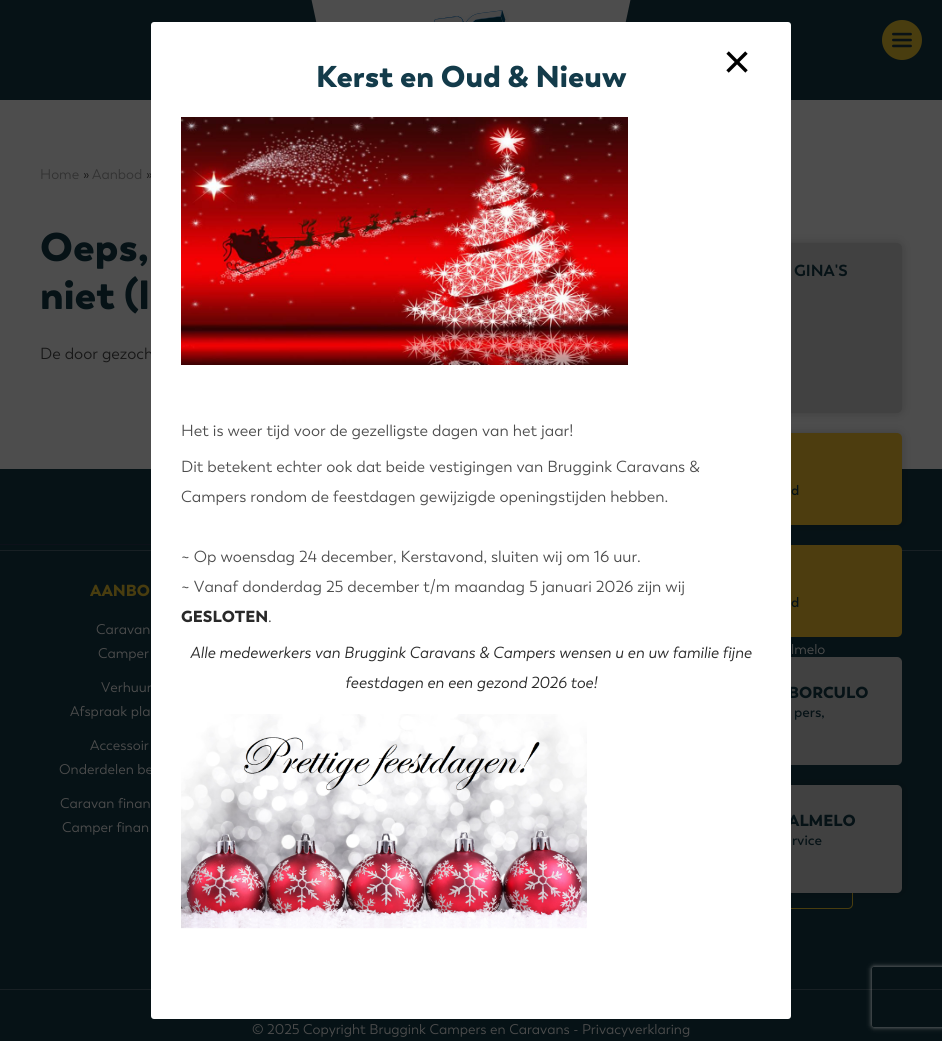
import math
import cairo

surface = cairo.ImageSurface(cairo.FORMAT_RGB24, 942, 1041)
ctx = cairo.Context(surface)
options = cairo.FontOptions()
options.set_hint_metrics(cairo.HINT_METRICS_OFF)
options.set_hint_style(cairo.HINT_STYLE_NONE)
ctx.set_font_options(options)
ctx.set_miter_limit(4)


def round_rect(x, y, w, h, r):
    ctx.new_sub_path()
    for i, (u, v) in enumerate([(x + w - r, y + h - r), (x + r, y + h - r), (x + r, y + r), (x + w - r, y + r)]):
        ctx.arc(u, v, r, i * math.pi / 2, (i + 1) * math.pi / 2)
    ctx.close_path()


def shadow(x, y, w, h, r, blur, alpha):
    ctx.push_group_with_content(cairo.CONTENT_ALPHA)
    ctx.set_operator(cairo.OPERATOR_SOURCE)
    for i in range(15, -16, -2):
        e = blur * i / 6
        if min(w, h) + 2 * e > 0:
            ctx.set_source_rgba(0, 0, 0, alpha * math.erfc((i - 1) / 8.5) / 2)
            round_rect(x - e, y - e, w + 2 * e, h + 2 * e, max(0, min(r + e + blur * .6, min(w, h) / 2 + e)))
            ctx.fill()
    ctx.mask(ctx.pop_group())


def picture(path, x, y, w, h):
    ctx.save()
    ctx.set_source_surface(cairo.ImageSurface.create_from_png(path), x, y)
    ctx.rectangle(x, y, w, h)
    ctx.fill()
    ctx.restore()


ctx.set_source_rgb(0.302, 0.302, 0.302)
ctx.paint()
ctx.set_source_rgb(0.024, 0.071, 0.086)
ctx.rectangle(0, 0, 942, 100)
ctx.fill()
ctx.set_source_rgb(0.302, 0.302, 0.302)
ctx.new_path()
ctx.move_to(597, 115)
ctx.line_to(345, 115)
ctx.curve_to(340, 115, 335, 111, 334, 105)
ctx.line_to(303, -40)
ctx.line_to(639, -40)
ctx.line_to(608, 105)
ctx.curve_to(607, 111, 602, 115, 597, 115)
ctx.close_path()
ctx.fill()
ctx.select_font_face("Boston")
ctx.set_font_size(14)
ctx.set_source_rgb(0.09, 0.09, 0.09)
ctx.move_to(146, 179)
ctx.show_text("»")
ctx.set_source_rgb(0, 0, 0)
shadow(623, 243, 279, 170, 5, 5, 0.2)
ctx.set_source_rgb(0.255, 0.255, 0.255)
round_rect(623, 243, 279, 170, 5)
ctx.fill()
ctx.set_source_rgb(0.024, 0.071, 0.086)
ctx.rectangle(0, 469, 942, 572)
ctx.fill()
ctx.set_source_rgb(0, 0, 0)
shadow(623, 433, 279, 92, 5, 5, 0.2)
ctx.set_source_rgb(0.302, 0.239, 0.059)
round_rect(623, 433, 279, 92, 5)
ctx.fill()
ctx.set_source_rgb(0.094, 0.125, 0.141)
ctx.rectangle(0, 550, 942, 1)
ctx.fill()
ctx.set_source_rgb(0.302, 0.239, 0.059)
round_rect(623, 545, 279, 92, 5)
ctx.fill()
ctx.set_source_rgb(0.255, 0.255, 0.255)
round_rect(623, 657, 279, 108, 5)
ctx.fill()
ctx.select_font_face("Boston Black")
ctx.set_font_size(16)
ctx.set_source_rgb(0.024, 0.071, 0.086)
ctx.move_to(788, 698)
ctx.show_text("BORCULO")
round_rect(693.5, 875.5, 159, 33, 4.5)
ctx.set_source_rgb(0.286, 0.239, 0.059)
ctx.set_line_width(1)
ctx.stroke()
ctx.set_source_rgb(0, 0, 0)
shadow(623, 785, 279, 108, 5, 5, 0.2)
ctx.set_source_rgb(0.255, 0.255, 0.255)
round_rect(623, 785, 279, 108, 5)
ctx.fill()
ctx.set_source_rgb(0.024, 0.071, 0.086)
ctx.move_to(788, 826)
ctx.show_text("ALMELO")
ctx.select_font_face("Boston")
ctx.set_source_rgb(0.09, 0.09, 0.09)
ctx.move_to(40, 359)
ctx.show_text("De door gezoch")
gradient = cairo.LinearGradient(942, 544, 0, 545)
gradient.add_color_stop_rgba(0, 0.024, 0.071, 0.086, 1)
gradient.add_color_stop_rgba(1, 0.051, 0.067, 0.102, 1)
ctx.set_source(gradient)
ctx.rectangle(0, 544, 606, 1)
ctx.fill()
ctx.set_font_size(14)
ctx.set_source_rgb(0.302, 0.302, 0.302)
ctx.move_to(101, 692)
ctx.show_text("Verhuur")
ctx.move_to(59, 774)
ctx.show_text("Onderdelen be")
ctx.set_source_rgb(0.094, 0.125, 0.141)
ctx.rectangle(0, 989, 942, 1)
ctx.fill()
ctx.set_source_rgb(1, 1, 1)
round_rect(151, 22, 640, 997, 3)
ctx.fill()
ctx.select_font_face("Liberation Sans")
ctx.set_font_size(48)
ctx.set_source_rgb(0, 0, 0)
ctx.move_to(723, 78)
ctx.show_text("×")
ctx.select_font_face("Boston Black")
ctx.set_font_size(30)
ctx.set_source_rgb(0.078, 0.231, 0.29)
ctx.move_to(316, 87)
ctx.show_text("Kerst en Oud & Nieuw")
picture("img1.png", 181, 117, 447, 248)
ctx.select_font_face("Boston")
ctx.set_font_size(16)
ctx.set_source_rgb(0.302, 0.302, 0.302)
ctx.move_to(181, 436)
ctx.show_text("Het is weer tijd voor de gezelligste dagen van het jaar!")
ctx.move_to(181, 472)
ctx.show_text("Dit betekent echter ook dat beide vestigingen van Bruggink Caravans &")
ctx.move_to(181, 502)
ctx.show_text("Campers rondom de feestdagen gewijzigde openingstijden hebben.")
ctx.move_to(181, 562)
ctx.show_text("~ Op woensdag 24 december, Kerstavond, sluiten wij om 16 uur.")
ctx.move_to(181, 592)
ctx.show_text("~ Vanaf donderdag 25 december t/m maandag 5 januari 2026 zijn wij")
ctx.select_font_face("Boston Black")
ctx.set_source_rgb(0.161, 0.161, 0.161)
ctx.move_to(181, 622)
ctx.show_text("GESLOTEN")
ctx.select_font_face("Boston")
ctx.set_source_rgb(0.302, 0.302, 0.302)
ctx.move_to(268, 622)
ctx.show_text(".")
ctx.select_font_face("Boston", cairo.FONT_SLANT_ITALIC)
ctx.set_source_rgb(0.161, 0.161, 0.161)
ctx.move_to(190, 658)
ctx.show_text("Alle medewerkers van Bruggink Caravans & Campers wensen u en uw familie fijne")
ctx.move_to(345, 688)
ctx.show_text("feestdagen en een gezond 2026 toe!")
picture("img2.png", 181, 714, 406, 215)
picture("img3.png", 434, 10, 75, 12)
ctx.set_source_rgb(0.286, 0.239, 0.059)
ctx.arc(902, 40, 20, 0, 2 * math.pi)
ctx.fill()
picture("img4.png", 892, 32, 20, 16)
ctx.select_font_face("Boston")
ctx.set_font_size(14)
ctx.set_source_rgb(0.196, 0.196, 0.196)
ctx.move_to(40, 179)
ctx.show_text("Home")
ctx.set_source_rgb(0.09, 0.09, 0.09)
ctx.move_to(83, 179)
ctx.show_text("»")
ctx.set_source_rgb(0.196, 0.196, 0.196)
ctx.move_to(92, 179)
ctx.show_text("Aanbod")
ctx.select_font_face("Boston Black")
ctx.set_font_size(40)
ctx.set_source_rgb(0.024, 0.071, 0.086)
ctx.move_to(40, 261)
ctx.show_text("Oeps,")
ctx.move_to(40, 309)
ctx.show_text("niet (l")
ctx.select_font_face("Boston", cairo.FONT_SLANT_NORMAL, cairo.FONT_WEIGHT_BOLD)
ctx.set_font_size(16)
ctx.move_to(794, 276)
ctx.show_text("GINA'S")
ctx.select_font_face("Boston SemiBold")
ctx.set_font_size(14)
ctx.move_to(791, 495)
ctx.show_text("d")
ctx.move_to(791, 607)
ctx.show_text("d")
ctx.move_to(794, 717)
ctx.show_text("pers,")
ctx.move_to(792, 845)
ctx.show_text("rvice")
ctx.select_font_face("Boston Black")
ctx.set_font_size(16)
ctx.set_source_rgb(0.286, 0.239, 0.059)
ctx.move_to(90, 596)
ctx.show_text("AANBO")
ctx.select_font_face("Boston")
ctx.set_font_size(14)
ctx.set_source_rgb(0.302, 0.302, 0.302)
ctx.move_to(96, 634)
ctx.show_text("Caravan")
ctx.move_to(98, 658)
ctx.show_text("Camper")
ctx.move_to(70, 716)
ctx.show_text("Afspraak pla")
ctx.move_to(90, 750)
ctx.show_text("Accessoir")
ctx.move_to(60, 808)
ctx.show_text("Caravan finan")
ctx.move_to(62, 832)
ctx.show_text("Camper finan")
ctx.move_to(791, 654)
ctx.show_text("lmelo")
ctx.move_to(252, 1034)
ctx.show_text("© 2025 Copyright Bruggink Campers en Caravans - Privacyverklaring")
ctx.save()
ctx.set_fill_rule(cairo.FILL_RULE_EVEN_ODD)
ctx.new_path()
ctx.move_to(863, 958)
ctx.line_to(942, 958)
ctx.line_to(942, 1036)
ctx.line_to(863, 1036)
ctx.close_path()
ctx.move_to(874, 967)
ctx.line_to(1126, 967)
ctx.curve_to(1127, 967, 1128, 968, 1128, 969)
ctx.line_to(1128, 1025)
ctx.curve_to(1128, 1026, 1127, 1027, 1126, 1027)
ctx.line_to(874, 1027)
ctx.curve_to(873, 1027, 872, 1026, 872, 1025)
ctx.line_to(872, 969)
ctx.curve_to(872, 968, 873, 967, 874, 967)
ctx.close_path()
ctx.clip()
ctx.set_source_rgb(0.502, 0.502, 0.502)
shadow(872, 967, 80, 60, 2, 2.5, 1)
ctx.restore()
surface.write_to_png("page.png")
